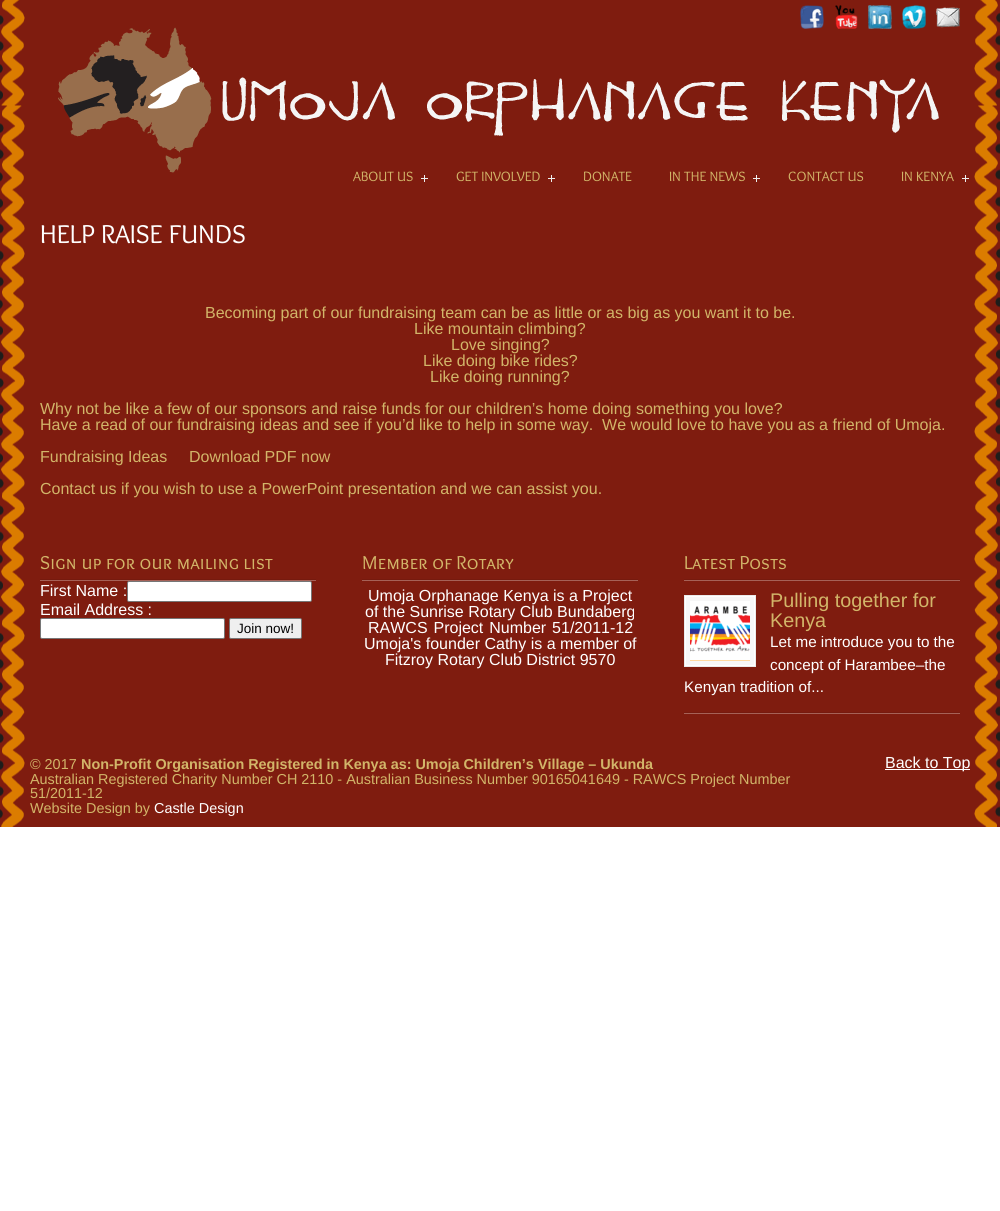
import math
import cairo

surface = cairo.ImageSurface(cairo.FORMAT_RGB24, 1000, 1211)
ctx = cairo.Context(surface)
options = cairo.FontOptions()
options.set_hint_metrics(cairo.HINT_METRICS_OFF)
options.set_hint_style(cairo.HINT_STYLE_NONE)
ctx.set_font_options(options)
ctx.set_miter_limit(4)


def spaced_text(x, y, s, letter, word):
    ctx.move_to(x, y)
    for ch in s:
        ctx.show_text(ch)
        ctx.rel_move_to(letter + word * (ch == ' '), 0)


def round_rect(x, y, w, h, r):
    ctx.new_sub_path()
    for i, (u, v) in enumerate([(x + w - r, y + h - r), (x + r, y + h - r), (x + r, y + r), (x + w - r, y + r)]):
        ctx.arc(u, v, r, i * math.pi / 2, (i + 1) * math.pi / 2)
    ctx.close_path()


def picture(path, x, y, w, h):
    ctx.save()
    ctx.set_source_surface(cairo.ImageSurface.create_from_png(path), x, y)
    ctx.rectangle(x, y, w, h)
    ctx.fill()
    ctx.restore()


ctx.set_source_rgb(1, 1, 1)
ctx.paint()
ctx.set_source_rgb(0.498, 0.11, 0.059)
ctx.rectangle(0, 0, 1000, 827)
ctx.fill()
picture("img1.png", 0, 0, 1000, 827)
picture("img2.png", 800, 5, 24, 24)
picture("img3.png", 835, 5, 23, 24)
picture("img4.png", 868, 5, 24, 24)
picture("img5.png", 902, 5, 24, 24)
picture("img6.png", 936, 7, 24, 21)
picture("img7.png", 58, 27, 881, 146)
ctx.select_font_face("Overlock SC")
ctx.set_font_size(14)
ctx.set_source_rgb(0.824, 0.71, 0.412)
ctx.move_to(353, 181)
ctx.show_text("ABOUT US")
picture("img8.png", 421, 175, 7, 7)
ctx.move_to(456, 181)
ctx.show_text("GET INVOLVED")
picture("img8.png", 548, 175, 7, 7)
ctx.move_to(583, 181)
ctx.show_text("DONATE")
ctx.move_to(669, 181)
ctx.show_text("IN THE NEWS")
picture("img8.png", 753, 175, 7, 7)
ctx.move_to(788, 181)
ctx.show_text("CONTACT US")
ctx.move_to(901, 181)
ctx.show_text("IN KENYA")
picture("img8.png", 962, 175, 7, 7)
ctx.set_font_size(26.75)
ctx.set_source_rgb(1, 1, 1)
ctx.move_to(40, 243)
ctx.show_text("HELP RAISE FUNDS")
ctx.select_font_face("Liberation Sans")
ctx.set_font_size(16)
ctx.set_source_rgb(0.824, 0.71, 0.412)
ctx.move_to(205, 318)
ctx.show_text("Becoming part of our fundraising team can be as little or as big as you want it to be.")
ctx.move_to(414, 334)
ctx.show_text("Like mountain climbing?")
ctx.move_to(451, 350)
ctx.show_text("Love singing?")
ctx.move_to(423, 366)
ctx.show_text("Like doing bike rides?")
ctx.move_to(430, 382)
ctx.show_text("Like doing running?")
ctx.move_to(40, 414)
ctx.show_text("Why not be like a few of our sponsors and raise funds for our children’s home doing something you love?")
ctx.move_to(40, 430)
ctx.show_text("Have a read of our fundraising ideas and see if you’d like to help in some way.  We would love to have you as a friend of Umoja.")
ctx.move_to(40, 462)
ctx.show_text("Fundraising Ideas")
ctx.move_to(189, 462)
ctx.show_text("Download PDF now")
ctx.move_to(40, 494)
ctx.show_text("Contact us if you wish to use a PowerPoint presentation and we can assist you.")
picture("img9.png", 40, 579, 276, 2)
ctx.select_font_face("Overlock SC")
ctx.set_font_size(19.4)
ctx.move_to(40, 569)
ctx.show_text("Sign up for our mailing list")
ctx.select_font_face("Liberation Sans")
ctx.set_font_size(16)
ctx.set_source_rgb(1, 1, 1)
ctx.move_to(40, 596)
ctx.show_text("First Name :")
round_rect(127.5, 581.5, 184, 20, 1.5)
ctx.fill_preserve()
ctx.set_source_rgb(0.463, 0.463, 0.463)
ctx.set_line_width(1)
ctx.stroke()
ctx.set_source_rgb(1, 1, 1)
ctx.move_to(40, 615)
ctx.show_text("Email Address :")
round_rect(40.5, 618.5, 184, 20, 1.5)
ctx.fill_preserve()
ctx.set_source_rgb(0.463, 0.463, 0.463)
ctx.stroke()
ctx.set_source_rgb(0.937, 0.937, 0.937)
round_rect(229.5, 618.5, 72, 20, 1.5)
ctx.fill_preserve()
ctx.set_source_rgb(0.463, 0.463, 0.463)
ctx.stroke()
ctx.set_font_size(13.5)
ctx.set_source_rgb(0, 0, 0)
ctx.move_to(237, 633)
ctx.show_text("Join now!")
picture("img9.png", 362, 579, 276, 2)
ctx.select_font_face("Overlock SC")
ctx.set_font_size(19.4)
ctx.set_source_rgb(0.824, 0.71, 0.412)
ctx.move_to(362, 569)
ctx.show_text("Member of Rotary")
ctx.select_font_face("Liberation Sans")
ctx.set_font_size(16)
ctx.set_source_rgb(1, 1, 1)
ctx.move_to(368, 601)
ctx.show_text("Umoja Orphanage Kenya is a Project")
ctx.move_to(365, 617)
ctx.show_text("of the Sunrise Rotary Club Bundaberg")
spaced_text(368, 633, "RAWCS Project Number 51/2011-12", 0, 1.5)
ctx.move_to(364, 649)
ctx.show_text("Umoja's founder Cathy is a member of")
ctx.move_to(385, 665)
ctx.show_text("Fitzroy Rotary Club District 9570")
picture("img9.png", 684, 579, 276, 2)
ctx.select_font_face("Overlock SC")
ctx.set_font_size(19.4)
ctx.set_source_rgb(0.824, 0.71, 0.412)
ctx.move_to(684, 569)
ctx.show_text("Latest Posts")
picture("img9.png", 684, 712, 276, 2)
ctx.set_source_rgb(0.965, 0.965, 0.965)
ctx.rectangle(686, 597, 68, 68)
ctx.fill()
ctx.rectangle(684.5, 595.5, 71, 71)
ctx.set_source_rgb(0.918, 0.918, 0.918)
ctx.stroke()
ctx.rectangle(685.5, 596.5, 69, 69)
ctx.set_source_rgb(1, 1, 1)
ctx.stroke()
picture("img10.png", 690, 601, 60, 60)
ctx.select_font_face("Liberation Sans")
ctx.set_font_size(19.75)
ctx.set_source_rgb(0.824, 0.71, 0.412)
ctx.move_to(770, 607)
ctx.show_text("Pulling together for")
ctx.move_to(770, 627)
ctx.show_text("Kenya")
ctx.set_font_size(15.25)
ctx.set_source_rgb(1, 1, 1)
ctx.move_to(770, 647)
ctx.show_text("Let me introduce you to the")
ctx.move_to(770, 670)
ctx.show_text("concept of Harambee–the")
ctx.move_to(684, 692)
ctx.show_text("Kenyan tradition of...")
ctx.set_font_size(14.4)
ctx.set_source_rgb(0.824, 0.71, 0.412)
ctx.move_to(30, 769)
ctx.show_text("© 2017")
ctx.select_font_face("Liberation Sans", cairo.FONT_SLANT_NORMAL, cairo.FONT_WEIGHT_BOLD)
ctx.move_to(81, 769)
ctx.show_text("Non-Profit Organisation Registered in Kenya as: Umoja Children’s Village – Ukunda")
ctx.select_font_face("Liberation Sans")
ctx.move_to(30, 784)
ctx.show_text("Australian Registered Charity Number CH 2110 - Australian Business Number 90165041649 - RAWCS Project Number")
ctx.move_to(30, 798)
ctx.show_text("51/2011-12")
ctx.move_to(30, 813)
ctx.show_text("Website Design by")
ctx.set_source_rgb(1, 1, 1)
ctx.move_to(154, 813)
ctx.show_text("Castle Design")
ctx.rectangle(885, 769, 85, 1)
ctx.fill()
ctx.set_font_size(16)
ctx.move_to(885, 768)
ctx.show_text("Back to Top")
surface.write_to_png("page.png")
